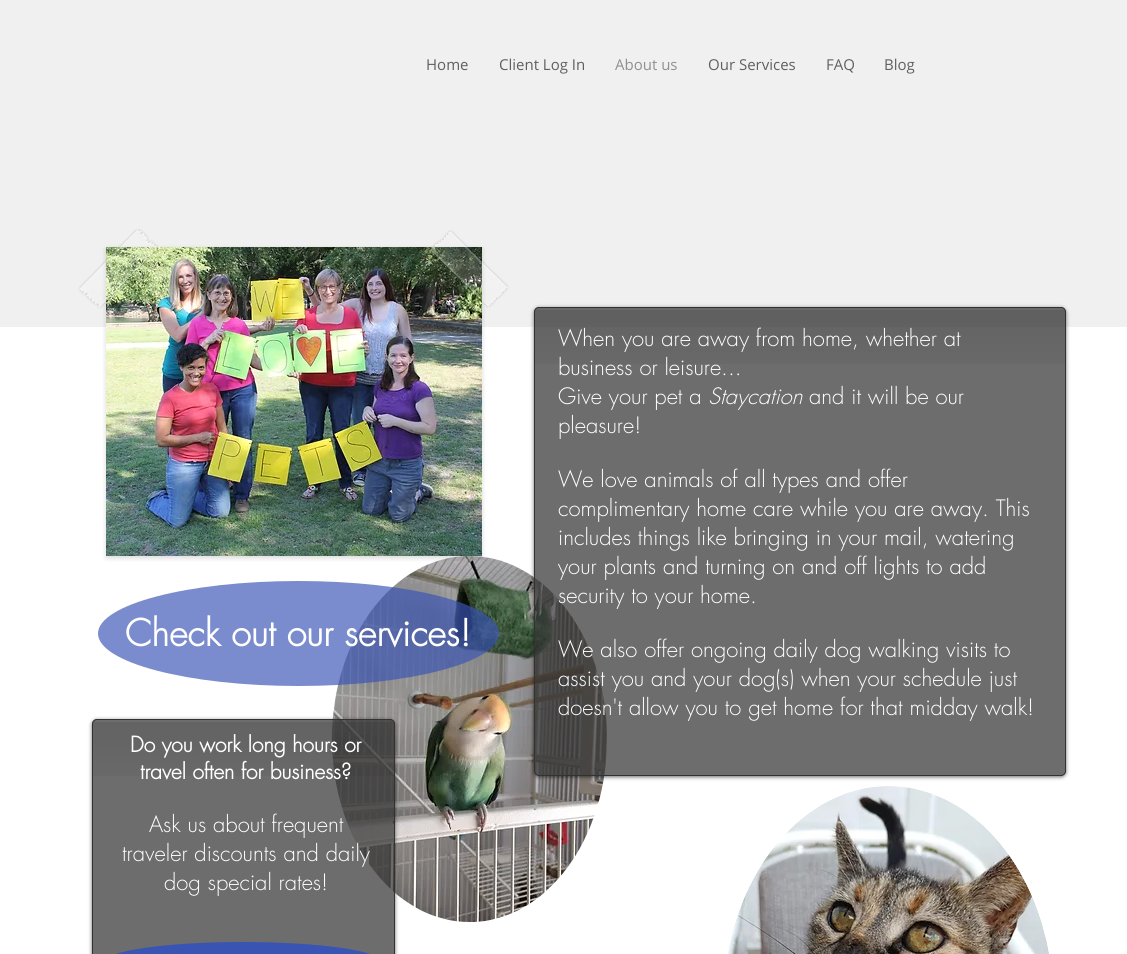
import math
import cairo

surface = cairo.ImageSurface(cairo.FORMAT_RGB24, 1127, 954)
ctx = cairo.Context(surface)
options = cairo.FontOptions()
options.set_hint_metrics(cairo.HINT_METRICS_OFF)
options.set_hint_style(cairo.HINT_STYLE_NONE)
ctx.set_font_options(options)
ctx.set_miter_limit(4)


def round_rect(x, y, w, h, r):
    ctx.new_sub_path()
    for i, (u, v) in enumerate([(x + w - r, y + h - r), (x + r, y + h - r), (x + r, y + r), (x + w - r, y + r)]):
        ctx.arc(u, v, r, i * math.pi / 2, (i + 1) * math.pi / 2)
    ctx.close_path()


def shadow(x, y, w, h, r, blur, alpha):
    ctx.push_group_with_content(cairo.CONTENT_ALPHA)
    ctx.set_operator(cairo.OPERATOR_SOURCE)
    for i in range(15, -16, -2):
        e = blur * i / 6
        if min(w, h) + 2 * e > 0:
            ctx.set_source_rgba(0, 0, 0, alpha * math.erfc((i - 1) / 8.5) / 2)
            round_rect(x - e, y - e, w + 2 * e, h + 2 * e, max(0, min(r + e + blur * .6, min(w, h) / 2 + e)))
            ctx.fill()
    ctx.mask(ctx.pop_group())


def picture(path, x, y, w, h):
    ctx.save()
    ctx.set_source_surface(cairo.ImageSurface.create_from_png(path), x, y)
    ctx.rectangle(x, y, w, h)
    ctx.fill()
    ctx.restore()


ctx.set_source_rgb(1, 1, 1)
ctx.paint()
ctx.set_source_rgb(0.941, 0.941, 0.941)
ctx.rectangle(0, 0, 1127, 327)
ctx.fill()
ctx.select_font_face("Open Sans")
ctx.set_font_size(15)
ctx.set_source_rgb(0.376, 0.376, 0.376)
ctx.move_to(426, 70)
ctx.show_text("Home")
ctx.move_to(499, 70)
ctx.show_text("Client Log In")
ctx.set_source_rgb(0.565, 0.565, 0.565)
ctx.move_to(615, 70)
ctx.show_text("About us")
ctx.set_source_rgb(0.376, 0.376, 0.376)
ctx.move_to(708, 70)
ctx.show_text("Our Services")
ctx.move_to(826, 70)
ctx.show_text("FAQ")
ctx.move_to(884, 70)
ctx.show_text("Blog")
picture("img5.png", 332, 556, 275, 366)
ctx.set_source_rgb(0, 0, 0)
shadow(106, 249, 376, 309, 0, 2.5, 0.15)
picture("img3.png", 106, 247, 376, 309)
picture("img1.png", 78, 229, 80, 80)
picture("img2.png", 430, 230, 79, 78)
ctx.save()
ctx.set_fill_rule(cairo.FILL_RULE_EVEN_ODD)
ctx.new_path()
ctx.move_to(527, 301)
ctx.line_to(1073, 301)
ctx.line_to(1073, 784)
ctx.line_to(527, 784)
ctx.close_path()
ctx.move_to(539, 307)
ctx.line_to(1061, 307)
ctx.curve_to(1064, 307, 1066, 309, 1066, 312)
ctx.line_to(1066, 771)
ctx.curve_to(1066, 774, 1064, 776, 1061, 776)
ctx.line_to(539, 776)
ctx.curve_to(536, 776, 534, 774, 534, 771)
ctx.line_to(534, 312)
ctx.curve_to(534, 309, 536, 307, 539, 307)
ctx.close_path()
ctx.clip()
shadow(534, 308, 532, 469, 5, 2, 0.6)
ctx.restore()
ctx.set_source_rgba(0.196, 0.196, 0.196, 0.71)
round_rect(534, 307, 532, 469, 5)
ctx.fill()
picture("img4.png", 534, 310, 532, 54)
round_rect(534.5, 307.5, 531, 468, 4.5)
ctx.set_source_rgb(0.196, 0.196, 0.196)
ctx.set_line_width(1)
ctx.stroke()
ctx.select_font_face("futura Light")
ctx.set_font_size(22)
ctx.set_source_rgb(1, 1, 1)
ctx.move_to(558, 346)
ctx.show_text("When you are away from home, whether at")
ctx.move_to(558, 375)
ctx.show_text("business or leisure...")
ctx.move_to(558, 404)
ctx.show_text("Give your pet a")
ctx.select_font_face("futura Light", cairo.FONT_SLANT_ITALIC)
ctx.move_to(708, 404)
ctx.show_text("Staycation")
ctx.select_font_face("futura Light")
ctx.move_to(809, 404)
ctx.show_text("and it will be our")
ctx.move_to(558, 433)
ctx.show_text("pleasure!")
ctx.move_to(558, 487)
ctx.show_text("We love animals of all types and offer")
ctx.move_to(558, 516)
ctx.show_text("complimentary home care while you are away. This")
ctx.move_to(558, 545)
ctx.show_text("includes things like bringing in your mail, watering")
ctx.move_to(558, 574)
ctx.show_text("your plants and turning on and off lights to add")
ctx.move_to(558, 603)
ctx.show_text("security to your home.")
ctx.move_to(558, 657)
ctx.show_text("We also offer ongoing daily dog walking visits to")
ctx.move_to(558, 686)
ctx.show_text("assist you and your dog(s) when your schedule just")
ctx.move_to(558, 715)
ctx.show_text("doesn't allow you to get home for that midday walk!")
ctx.set_source_rgba(0.227, 0.329, 0.706, 0.67)
ctx.new_path()
ctx.move_to(298.5, 581)
ctx.curve_to(409, 581, 499, 604.5, 499, 633.5)
ctx.curve_to(499, 662.5, 409, 686, 298.5, 686)
ctx.curve_to(188, 686, 98, 662.5, 98, 633.5)
ctx.curve_to(98, 604.5, 188, 581, 298.5, 581)
ctx.close_path()
ctx.fill()
ctx.select_font_face("futura", cairo.FONT_SLANT_NORMAL, cairo.FONT_WEIGHT_BOLD)
ctx.set_font_size(36)
ctx.set_source_rgb(1, 1, 1)
ctx.move_to(125, 646)
ctx.show_text("Check out our services!")
ctx.save()
ctx.set_fill_rule(cairo.FILL_RULE_EVEN_ODD)
ctx.new_path()
ctx.move_to(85, 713)
ctx.line_to(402, 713)
ctx.line_to(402, 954)
ctx.line_to(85, 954)
ctx.close_path()
ctx.move_to(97, 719)
ctx.line_to(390, 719)
ctx.curve_to(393, 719, 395, 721, 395, 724)
ctx.line_to(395, 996)
ctx.curve_to(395, 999, 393, 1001, 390, 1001)
ctx.line_to(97, 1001)
ctx.curve_to(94, 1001, 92, 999, 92, 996)
ctx.line_to(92, 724)
ctx.curve_to(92, 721, 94, 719, 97, 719)
ctx.close_path()
ctx.clip()
ctx.set_source_rgb(0, 0, 0)
shadow(92, 720, 303, 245, 5, 2, 0.6)
ctx.restore()
ctx.set_source_rgba(0.196, 0.196, 0.196, 0.71)
round_rect(92, 719, 303, 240, 5)
ctx.fill()
picture("img6.png", 92, 722, 303, 54)
round_rect(92.5, 719.5, 302, 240, 4.5)
ctx.set_source_rgb(0.196, 0.196, 0.196)
ctx.stroke()
ctx.set_font_size(21)
ctx.set_source_rgb(1, 1, 1)
ctx.move_to(130, 752)
ctx.show_text("Do you work long hours or")
ctx.move_to(140, 779)
ctx.show_text("travel often for business?")
ctx.select_font_face("futura Light")
ctx.set_font_size(22)
ctx.move_to(149, 832)
ctx.show_text("Ask us about frequent")
ctx.move_to(122, 861)
ctx.show_text("traveler discounts and daily")
ctx.move_to(164, 890)
ctx.show_text("dog special rates!")
ctx.set_source_rgb(0.227, 0.329, 0.706)
ctx.new_path()
ctx.move_to(243, 942)
ctx.curve_to(320, 942, 382, 951, 382, 962)
ctx.curve_to(382, 973, 320, 982, 243, 982)
ctx.curve_to(166, 982, 104, 973, 104, 962)
ctx.curve_to(104, 951, 166, 942, 243, 942)
ctx.close_path()
ctx.fill()
picture("img7.png", 728, 786, 321, 168)
surface.write_to_png("page.png")
